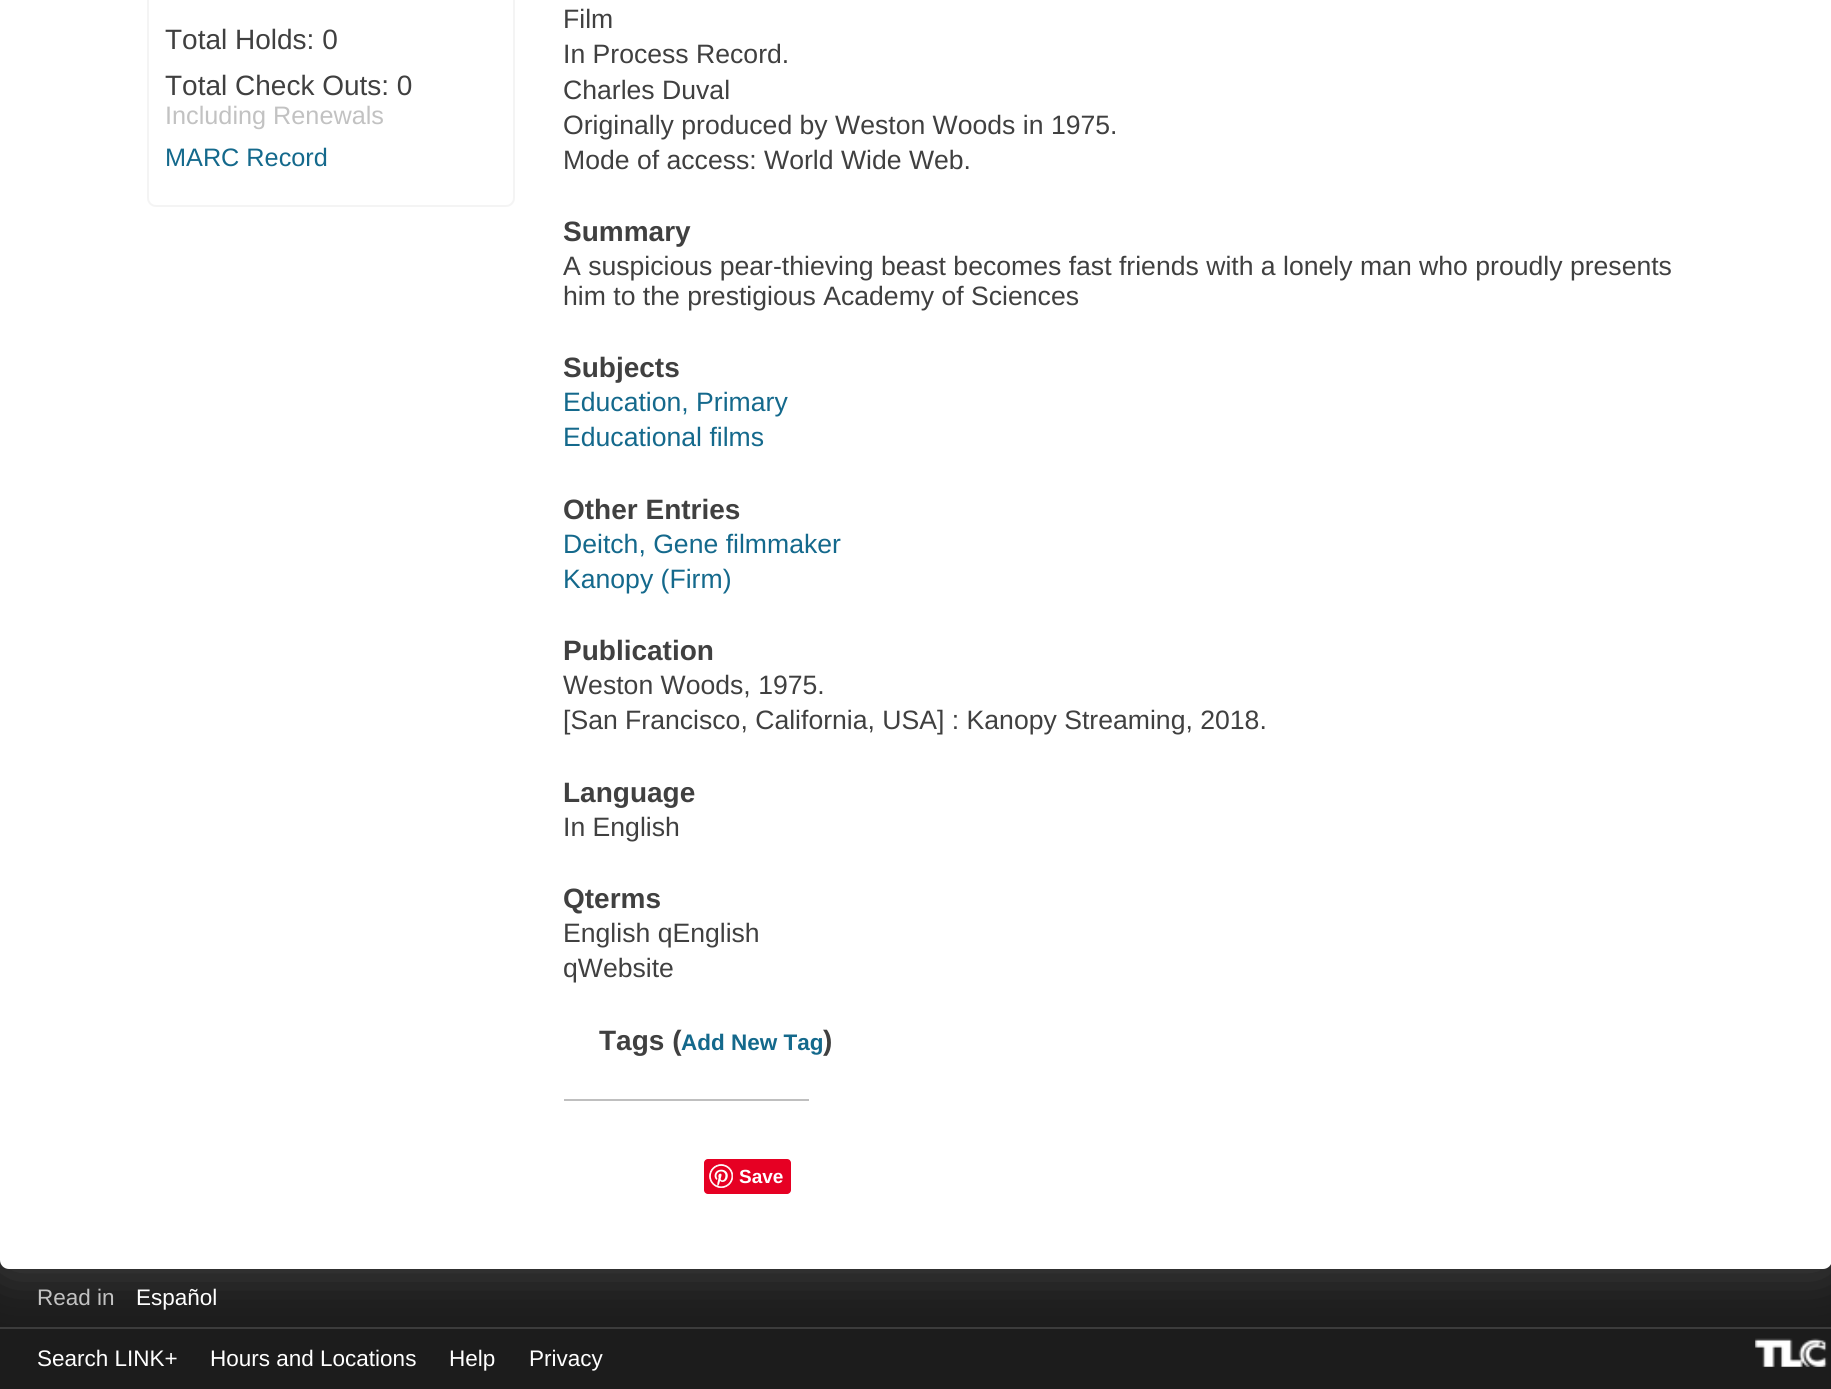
import math
import cairo

surface = cairo.ImageSurface(cairo.FORMAT_RGB24, 1831, 1389)
ctx = cairo.Context(surface)
options = cairo.FontOptions()
options.set_hint_metrics(cairo.HINT_METRICS_OFF)
options.set_hint_style(cairo.HINT_STYLE_NONE)
ctx.set_font_options(options)
ctx.set_miter_limit(4)


def round_rect(x, y, w, h, r):
    ctx.new_sub_path()
    for i, (u, v) in enumerate([(x + w - r, y + h - r), (x + r, y + h - r), (x + r, y + r), (x + w - r, y + r)]):
        ctx.arc(u, v, r, i * math.pi / 2, (i + 1) * math.pi / 2)
    ctx.close_path()


def shadow(x, y, w, h, r, blur, alpha):
    ctx.push_group_with_content(cairo.CONTENT_ALPHA)
    ctx.set_operator(cairo.OPERATOR_SOURCE)
    for i in range(15, -16, -2):
        e = blur * i / 6
        if min(w, h) + 2 * e > 0:
            ctx.set_source_rgba(0, 0, 0, alpha * math.erfc((i - 1) / 8.5) / 2)
            round_rect(x - e, y - e, w + 2 * e, h + 2 * e, max(0, min(r + e + blur * .6, min(w, h) / 2 + e)))
            ctx.fill()
    ctx.mask(ctx.pop_group())


def picture(path, x, y, w, h):
    ctx.save()
    ctx.set_source_surface(cairo.ImageSurface.create_from_png(path), x, y)
    ctx.rectangle(x, y, w, h)
    ctx.fill()
    ctx.restore()


ctx.set_source_rgb(1, 1, 1)
ctx.paint()
gradient = cairo.LinearGradient(916, 1181, 916, 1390)
gradient.add_color_stop_rgba(0, 0.227, 0.227, 0.227, 1)
gradient.add_color_stop_rgba(0.3, 0.11, 0.11, 0.11, 1)
ctx.set_source(gradient)
ctx.rectangle(0, 1260, 1831, 129)
ctx.fill()
ctx.set_source_rgb(0.235, 0.235, 0.235)
ctx.rectangle(0, 1327, 1831, 2)
ctx.fill()
picture("img2.png", 1755, 1338, 73, 29)
ctx.set_source_rgb(0.333, 0.333, 0.333)
shadow(0, -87, 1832, 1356, 9, 26, 0.7)
ctx.set_source_rgb(1, 1, 1)
round_rect(0, -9, 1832, 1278, 9)
ctx.fill()
round_rect(148, -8, 366, 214, 8)
ctx.set_source_rgb(0.957, 0.957, 0.957)
ctx.stroke()
ctx.select_font_face("Liberation Sans")
ctx.set_font_size(28)
ctx.set_source_rgb(0.251, 0.251, 0.251)
ctx.move_to(165, 49)
ctx.show_text("Total Holds: 0")
ctx.move_to(165, 95)
ctx.show_text("Total Check Outs: 0")
ctx.set_font_size(25.25)
ctx.set_source_rgb(0.761, 0.761, 0.761)
ctx.move_to(165, 124)
ctx.show_text("Including Renewals")
ctx.set_source_rgb(0.082, 0.412, 0.549)
ctx.move_to(165, 166)
ctx.show_text("MARC Record")
ctx.set_font_size(26.6)
ctx.set_source_rgb(0.251, 0.251, 0.251)
ctx.move_to(563, 28)
ctx.show_text("Film")
ctx.move_to(563, 63)
ctx.show_text("In Process Record.")
ctx.move_to(563, 99)
ctx.show_text("Charles Duval")
ctx.move_to(563, 134)
ctx.show_text("Originally produced by Weston Woods in 1975.")
ctx.move_to(563, 169)
ctx.show_text("Mode of access: World Wide Web.")
ctx.select_font_face("Liberation Sans", cairo.FONT_SLANT_NORMAL, cairo.FONT_WEIGHT_BOLD)
ctx.set_font_size(28)
ctx.move_to(563, 241)
ctx.show_text("Summary")
ctx.select_font_face("Liberation Sans")
ctx.set_font_size(26.6)
ctx.move_to(563, 275)
ctx.show_text("A suspicious pear-thieving beast becomes fast friends with a lonely man who proudly presents")
ctx.move_to(563, 305)
ctx.show_text("him to the prestigious Academy of Sciences")
ctx.select_font_face("Liberation Sans", cairo.FONT_SLANT_NORMAL, cairo.FONT_WEIGHT_BOLD)
ctx.set_font_size(28)
ctx.move_to(563, 377)
ctx.show_text("Subjects")
ctx.select_font_face("Liberation Sans")
ctx.set_font_size(26.6)
ctx.set_source_rgb(0.082, 0.412, 0.549)
ctx.move_to(563, 411)
ctx.show_text("Education, Primary")
ctx.move_to(563, 446)
ctx.show_text("Educational films")
ctx.select_font_face("Liberation Sans", cairo.FONT_SLANT_NORMAL, cairo.FONT_WEIGHT_BOLD)
ctx.set_font_size(28)
ctx.set_source_rgb(0.251, 0.251, 0.251)
ctx.move_to(563, 519)
ctx.show_text("Other Entries")
ctx.select_font_face("Liberation Sans")
ctx.set_font_size(26.6)
ctx.set_source_rgb(0.082, 0.412, 0.549)
ctx.move_to(563, 553)
ctx.show_text("Deitch, Gene filmmaker")
ctx.move_to(563, 588)
ctx.show_text("Kanopy (Firm)")
ctx.select_font_face("Liberation Sans", cairo.FONT_SLANT_NORMAL, cairo.FONT_WEIGHT_BOLD)
ctx.set_font_size(28)
ctx.set_source_rgb(0.251, 0.251, 0.251)
ctx.move_to(563, 660)
ctx.show_text("Publication")
ctx.select_font_face("Liberation Sans")
ctx.set_font_size(26.6)
ctx.move_to(563, 694)
ctx.show_text("Weston Woods, 1975.")
ctx.move_to(563, 729)
ctx.show_text("[San Francisco, California, USA] : Kanopy Streaming, 2018.")
ctx.select_font_face("Liberation Sans", cairo.FONT_SLANT_NORMAL, cairo.FONT_WEIGHT_BOLD)
ctx.set_font_size(28)
ctx.move_to(563, 802)
ctx.show_text("Language")
ctx.select_font_face("Liberation Sans")
ctx.set_font_size(26.6)
ctx.move_to(563, 836)
ctx.show_text("In English")
ctx.select_font_face("Liberation Sans", cairo.FONT_SLANT_NORMAL, cairo.FONT_WEIGHT_BOLD)
ctx.set_font_size(28)
ctx.move_to(563, 908)
ctx.show_text("Qterms")
ctx.select_font_face("Liberation Sans")
ctx.set_font_size(26.6)
ctx.move_to(563, 942)
ctx.show_text("English qEnglish")
ctx.move_to(563, 977)
ctx.show_text("qWebsite")
ctx.select_font_face("Liberation Sans", cairo.FONT_SLANT_NORMAL, cairo.FONT_WEIGHT_BOLD)
ctx.set_font_size(28)
ctx.move_to(599, 1050)
ctx.show_text("Tags (")
ctx.set_font_size(22.5)
ctx.set_source_rgb(0.082, 0.412, 0.549)
ctx.move_to(681, 1050)
ctx.show_text("Add New Tag")
ctx.set_font_size(28)
ctx.set_source_rgb(0.251, 0.251, 0.251)
ctx.move_to(823, 1050)
ctx.show_text(")")
ctx.set_source_rgb(0.749, 0.749, 0.749)
ctx.rectangle(564, 1099, 245, 2)
ctx.fill()
ctx.set_source_rgb(0.902, 0, 0.137)
round_rect(704, 1159, 87, 35, 4)
ctx.fill()
picture("img1.png", 709, 1164, 24, 24)
ctx.set_font_size(19)
ctx.set_source_rgb(1, 1, 1)
ctx.move_to(739, 1183)
ctx.show_text("Save")
ctx.select_font_face("Liberation Sans")
ctx.set_font_size(22.5)
ctx.set_source_rgb(0.761, 0.761, 0.761)
ctx.move_to(37, 1305)
ctx.show_text("Read in")
ctx.set_source_rgb(1, 1, 1)
ctx.move_to(136, 1305)
ctx.show_text("Español")
ctx.move_to(37, 1366)
ctx.show_text("Search LINK+")
ctx.move_to(210, 1366)
ctx.show_text("Hours and Locations")
ctx.move_to(449, 1366)
ctx.show_text("Help")
ctx.move_to(529, 1366)
ctx.show_text("Privacy")
surface.write_to_png("page.png")
